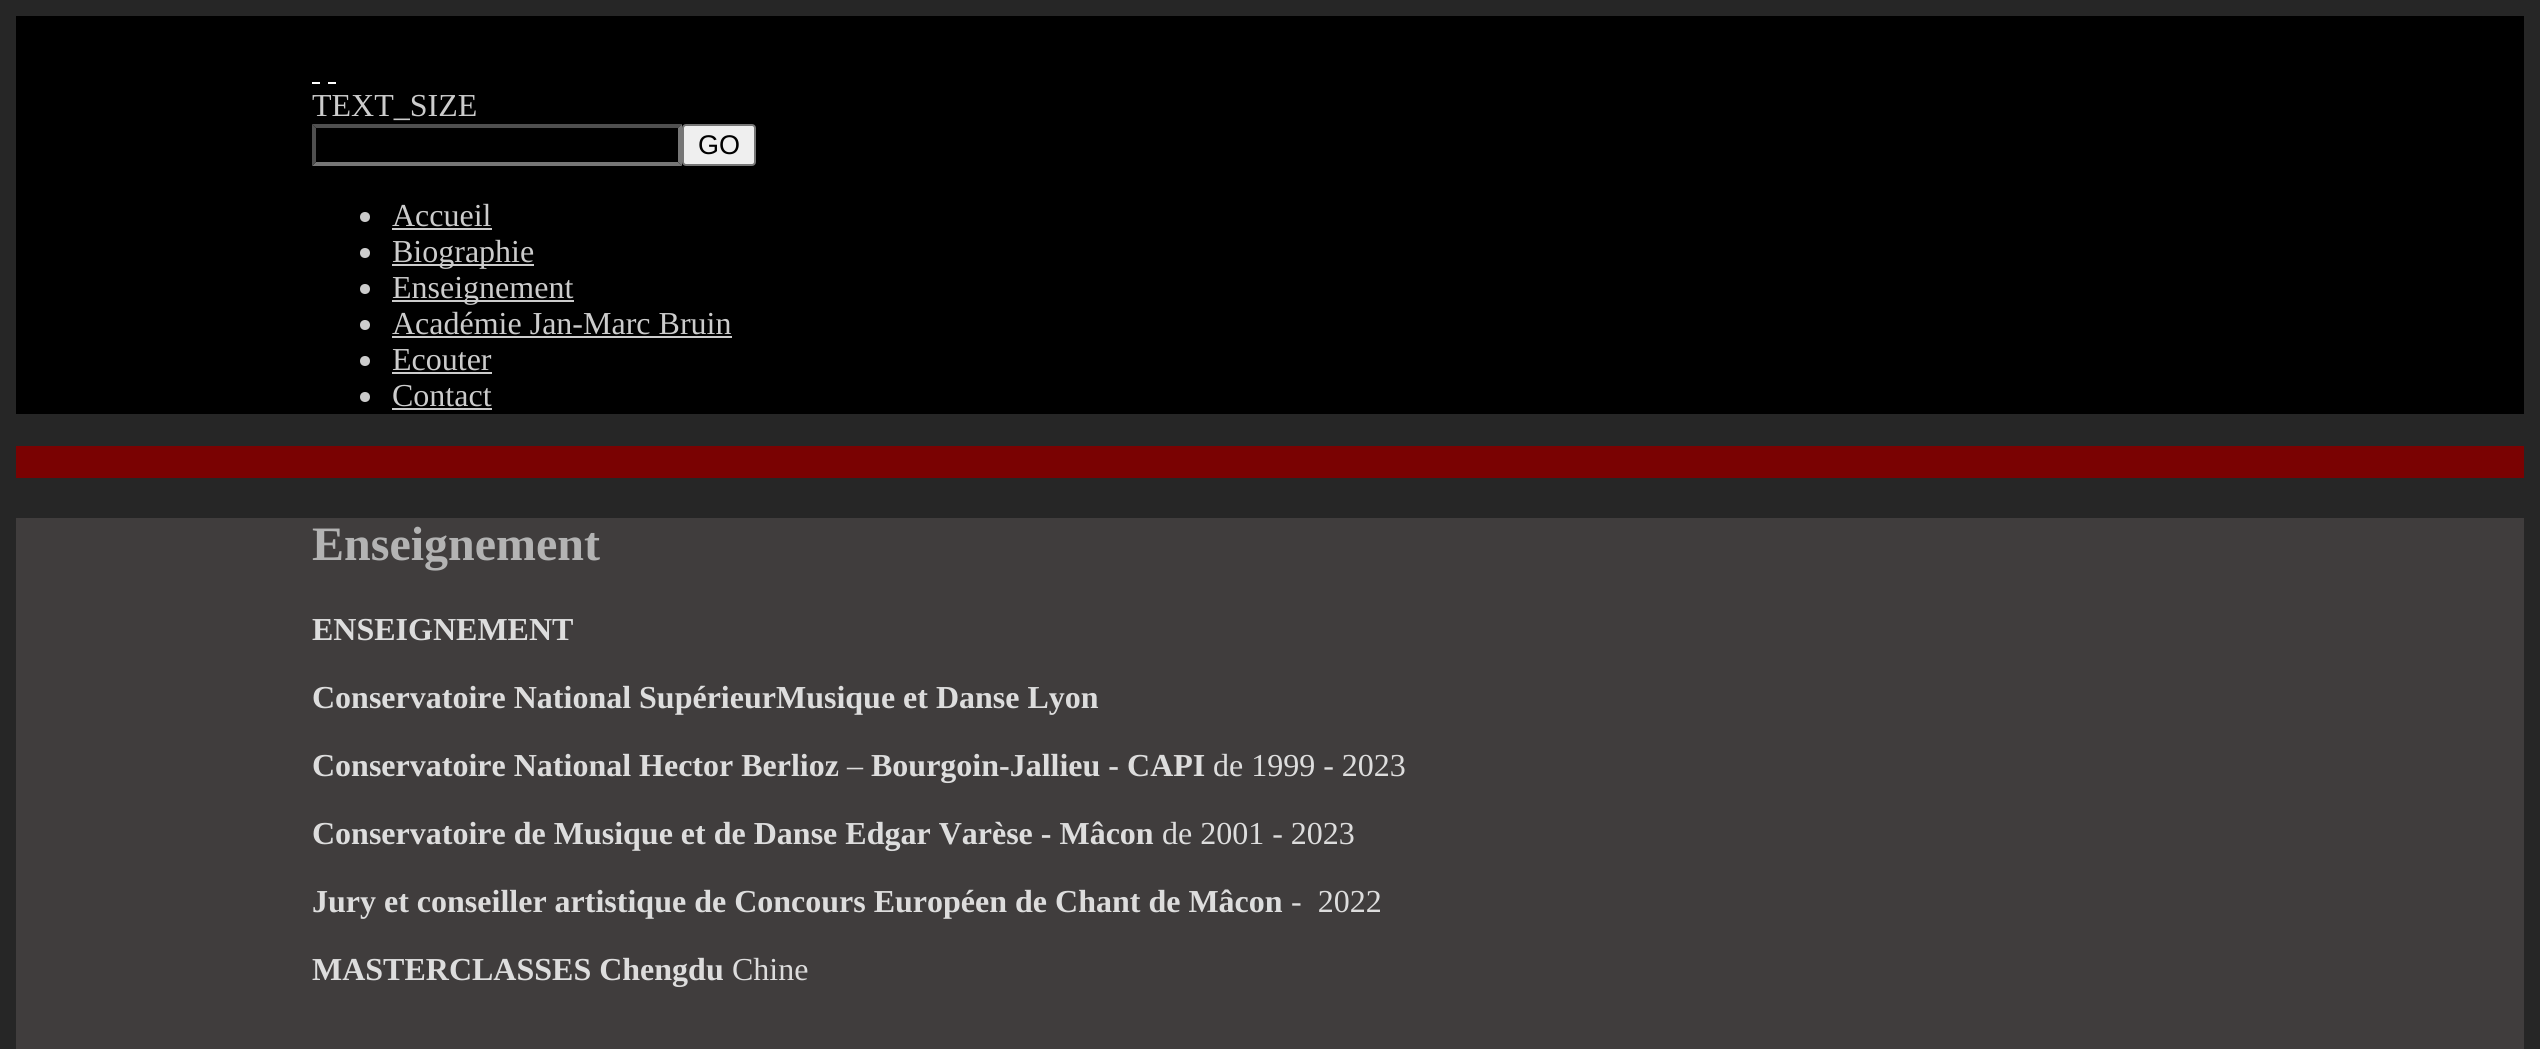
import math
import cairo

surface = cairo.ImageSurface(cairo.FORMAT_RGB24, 2540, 1049)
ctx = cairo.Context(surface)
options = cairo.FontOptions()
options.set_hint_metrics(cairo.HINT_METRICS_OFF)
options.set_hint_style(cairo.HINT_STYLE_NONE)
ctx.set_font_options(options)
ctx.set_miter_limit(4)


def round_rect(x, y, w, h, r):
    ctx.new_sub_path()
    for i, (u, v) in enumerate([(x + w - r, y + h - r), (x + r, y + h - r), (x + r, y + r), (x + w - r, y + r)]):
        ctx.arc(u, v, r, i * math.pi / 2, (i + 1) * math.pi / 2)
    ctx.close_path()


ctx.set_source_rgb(0.149, 0.149, 0.149)
ctx.paint()
ctx.set_source_rgb(0, 0, 0)
ctx.rectangle(16, 16, 2508, 398)
ctx.fill()
ctx.set_source_rgb(1, 1, 1)
ctx.rectangle(312, 82, 8, 2)
ctx.fill()
ctx.rectangle(328, 82, 8, 2)
ctx.fill()
ctx.select_font_face("Liberation Serif")
ctx.set_font_size(32)
ctx.set_source_rgb(0.8, 0.8, 0.8)
ctx.move_to(312, 116)
ctx.show_text("TEXT_SIZE")
ctx.set_source_rgb(0.31, 0.31, 0.31)
ctx.new_path()
ctx.move_to(312, 124)
ctx.line_to(682, 124)
ctx.line_to(678, 128)
ctx.line_to(316, 128)
ctx.close_path()
ctx.fill()
ctx.set_source_rgb(0.463, 0.463, 0.463)
ctx.new_path()
ctx.move_to(682, 124)
ctx.line_to(682, 166)
ctx.line_to(678, 162)
ctx.line_to(678, 128)
ctx.close_path()
ctx.fill()
ctx.new_path()
ctx.move_to(682, 166)
ctx.line_to(312, 166)
ctx.line_to(316, 162)
ctx.line_to(678, 162)
ctx.close_path()
ctx.fill()
ctx.set_source_rgb(0.31, 0.31, 0.31)
ctx.new_path()
ctx.move_to(312, 166)
ctx.line_to(312, 124)
ctx.line_to(316, 128)
ctx.line_to(316, 162)
ctx.close_path()
ctx.fill()
ctx.set_source_rgb(0.937, 0.937, 0.937)
round_rect(683, 125, 72, 40, 3)
ctx.fill_preserve()
ctx.set_source_rgb(0.463, 0.463, 0.463)
ctx.stroke()
ctx.select_font_face("Liberation Sans")
ctx.set_font_size(27)
ctx.set_source_rgb(0, 0, 0)
ctx.move_to(698, 154)
ctx.show_text("GO")
ctx.set_source_rgb(0.8, 0.8, 0.8)
ctx.new_path()
ctx.arc(365, 217, 5, 0, 2 * math.pi)
ctx.fill()
ctx.select_font_face("Liberation Serif")
ctx.set_font_size(32)
ctx.move_to(392, 226)
ctx.show_text("Accueil")
ctx.rectangle(392, 228, 100, 2)
ctx.fill()
ctx.arc(365, 253, 5, 0, 2 * math.pi)
ctx.fill()
ctx.rectangle(392, 264, 142, 2)
ctx.fill()
ctx.move_to(392, 262)
ctx.show_text("Biographie")
ctx.new_path()
ctx.arc(365, 289, 5, 0, 2 * math.pi)
ctx.fill()
ctx.rectangle(392, 300, 182, 2)
ctx.fill()
ctx.move_to(392, 298)
ctx.show_text("Enseignement")
ctx.new_path()
ctx.arc(365, 325, 5, 0, 2 * math.pi)
ctx.fill()
ctx.move_to(392, 334)
ctx.show_text("Académie Jan-Marc Bruin")
ctx.rectangle(392, 336, 340, 2)
ctx.fill()
ctx.arc(365, 361, 5, 0, 2 * math.pi)
ctx.fill()
ctx.move_to(392, 370)
ctx.show_text("Ecouter")
ctx.rectangle(392, 372, 100, 2)
ctx.fill()
ctx.arc(365, 397, 5, 0, 2 * math.pi)
ctx.fill()
ctx.move_to(392, 406)
ctx.show_text("Contact")
ctx.rectangle(392, 408, 100, 2)
ctx.fill()
ctx.set_source_rgb(0.478, 0.008, 0.008)
ctx.rectangle(16, 446, 2508, 32)
ctx.fill()
ctx.set_source_rgb(0.251, 0.239, 0.239)
ctx.rectangle(16, 518, 2508, 531)
ctx.fill()
ctx.select_font_face("Liberation Serif", cairo.FONT_SLANT_NORMAL, cairo.FONT_WEIGHT_BOLD)
ctx.set_font_size(48)
ctx.set_source_rgb(0.702, 0.702, 0.702)
ctx.move_to(312, 560)
ctx.show_text("Enseignement")
ctx.set_font_size(32)
ctx.set_source_rgb(0.867, 0.867, 0.867)
ctx.move_to(312, 640)
ctx.show_text("ENSEIGNEMENT")
ctx.move_to(312, 708)
ctx.show_text("Conservatoire National SupérieurMusique et Danse Lyon")
ctx.move_to(312, 776)
ctx.show_text("Conservatoire National Hector Berlioz")
ctx.select_font_face("Liberation Serif")
ctx.move_to(847, 776)
ctx.show_text("–")
ctx.select_font_face("Liberation Serif", cairo.FONT_SLANT_NORMAL, cairo.FONT_WEIGHT_BOLD)
ctx.move_to(871, 776)
ctx.show_text("Bourgoin-Jallieu - CAPI")
ctx.select_font_face("Liberation Serif")
ctx.move_to(1213, 776)
ctx.show_text("de 1999 - 2023")
ctx.select_font_face("Liberation Serif", cairo.FONT_SLANT_NORMAL, cairo.FONT_WEIGHT_BOLD)
ctx.move_to(312, 844)
ctx.show_text("Conservatoire de Musique et de Danse Edgar Varèse - Mâcon")
ctx.select_font_face("Liberation Serif")
ctx.move_to(1162, 844)
ctx.show_text("de 2001 - 2023")
ctx.select_font_face("Liberation Serif", cairo.FONT_SLANT_NORMAL, cairo.FONT_WEIGHT_BOLD)
ctx.move_to(312, 912)
ctx.show_text("Jury et conseiller artistique de Concours Européen de Chant de Mâcon")
ctx.select_font_face("Liberation Serif")
ctx.move_to(1291, 912)
ctx.show_text("-  2022")
ctx.select_font_face("Liberation Serif", cairo.FONT_SLANT_NORMAL, cairo.FONT_WEIGHT_BOLD)
ctx.move_to(312, 980)
ctx.show_text("MASTERCLASSES Chengdu")
ctx.select_font_face("Liberation Serif")
ctx.move_to(732, 980)
ctx.show_text("Chine")
surface.write_to_png("page.png")
